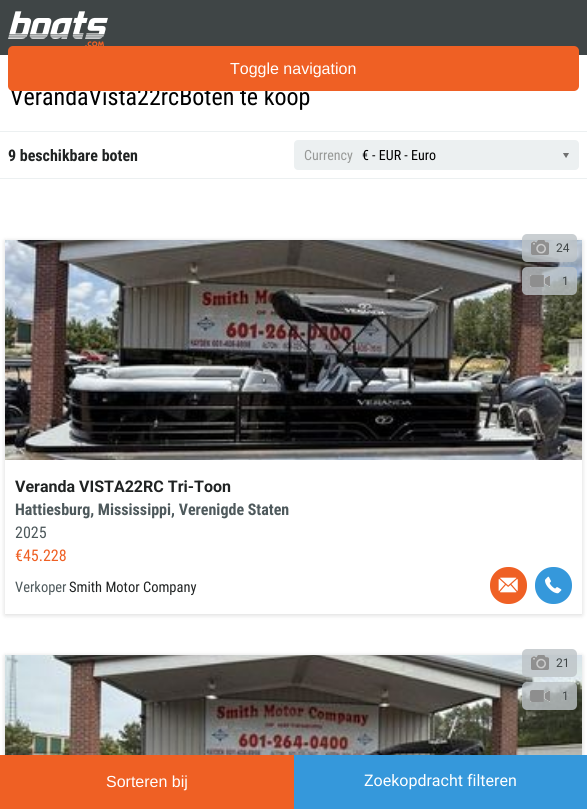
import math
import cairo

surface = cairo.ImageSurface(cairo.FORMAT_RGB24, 587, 809)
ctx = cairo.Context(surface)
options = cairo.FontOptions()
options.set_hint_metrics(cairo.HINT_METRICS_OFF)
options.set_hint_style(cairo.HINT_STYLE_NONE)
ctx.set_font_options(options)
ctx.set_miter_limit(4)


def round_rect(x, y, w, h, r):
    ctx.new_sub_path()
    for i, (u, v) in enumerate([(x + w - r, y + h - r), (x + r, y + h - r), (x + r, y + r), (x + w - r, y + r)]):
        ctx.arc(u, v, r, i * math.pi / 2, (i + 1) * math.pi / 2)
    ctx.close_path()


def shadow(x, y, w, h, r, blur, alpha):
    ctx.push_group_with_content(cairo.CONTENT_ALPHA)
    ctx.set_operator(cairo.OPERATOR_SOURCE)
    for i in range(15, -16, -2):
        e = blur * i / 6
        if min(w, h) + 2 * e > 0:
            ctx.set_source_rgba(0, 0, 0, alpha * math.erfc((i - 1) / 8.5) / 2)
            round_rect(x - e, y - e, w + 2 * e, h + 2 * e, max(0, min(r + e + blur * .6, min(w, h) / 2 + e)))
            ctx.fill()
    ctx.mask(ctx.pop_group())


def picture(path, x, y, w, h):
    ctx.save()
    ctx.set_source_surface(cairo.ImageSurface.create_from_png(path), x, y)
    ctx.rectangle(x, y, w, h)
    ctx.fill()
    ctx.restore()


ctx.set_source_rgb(1, 1, 1)
ctx.paint()
ctx.set_source_rgb(0.247, 0.271, 0.275)
ctx.rectangle(0, 0, 587, 55)
ctx.fill()
picture("img1.png", 8, 11, 100, 35)
ctx.select_font_face("Roboto Condensed")
ctx.set_font_size(24)
ctx.set_source_rgb(0, 0, 0)
ctx.move_to(10, 105)
ctx.show_text("VerandaVista22rcBoten te koop")
ctx.set_source_rgb(0.937, 0.376, 0.141)
round_rect(8, 46, 571, 45, 5)
ctx.fill()
ctx.select_font_face("Liberation Sans")
ctx.set_font_size(16)
ctx.set_source_rgb(1, 1, 1)
ctx.move_to(230, 74)
ctx.show_text("Toggle navigation")
ctx.set_source_rgb(0.925, 0.941, 0.945)
ctx.rectangle(0, 131, 587, 1)
ctx.fill()
ctx.rectangle(0, 178, 587, 1)
ctx.fill()
ctx.select_font_face("Roboto Condensed", cairo.FONT_SLANT_NORMAL, cairo.FONT_WEIGHT_BOLD)
ctx.set_source_rgb(0.125, 0.137, 0.137)
ctx.move_to(8, 161)
ctx.show_text("9 beschikbare boten")
ctx.set_source_rgb(0.925, 0.941, 0.945)
round_rect(294, 140, 285, 30, 4)
ctx.fill()
ctx.select_font_face("Roboto Condensed")
ctx.set_font_size(14)
ctx.set_source_rgb(0.592, 0.6, 0.592)
ctx.move_to(304, 160)
ctx.show_text("Currency")
ctx.set_source_rgb(0, 0, 0)
ctx.move_to(362, 160)
ctx.show_text("€ - EUR - Euro")
picture("img2.png", 563, 153, 6, 5)
ctx.save()
ctx.set_fill_rule(cairo.FILL_RULE_EVEN_ODD)
ctx.new_path()
ctx.move_to(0, 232)
ctx.line_to(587, 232)
ctx.line_to(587, 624)
ctx.line_to(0, 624)
ctx.close_path()
ctx.move_to(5, 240)
ctx.line_to(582, 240)
ctx.line_to(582, 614)
ctx.line_to(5, 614)
ctx.close_path()
ctx.clip()
ctx.set_source_rgb(0, 0, 0)
shadow(5, 241, 577, 374, 0, 2.5, 0.15)
ctx.restore()
picture("img3.png", 5, 240, 577, 220)
ctx.set_source_rgba(0.741, 0.765, 0.78, 0.8)
round_rect(522, 234, 55, 28, 5)
ctx.fill()
picture("img4.png", 531, 240, 18, 15)
ctx.select_font_face("Roboto")
ctx.set_font_size(12)
ctx.set_source_rgb(0.247, 0.271, 0.275)
ctx.move_to(556, 252)
ctx.show_text("24")
ctx.set_source_rgba(0.741, 0.765, 0.78, 0.8)
round_rect(522, 267, 55, 28, 5)
ctx.fill()
picture("img5.png", 530, 275, 20, 12)
ctx.set_source_rgb(0.247, 0.271, 0.275)
ctx.move_to(562, 285)
ctx.show_text("1")
ctx.select_font_face("Roboto", cairo.FONT_SLANT_NORMAL, cairo.FONT_WEIGHT_BOLD)
ctx.set_font_size(16)
ctx.set_source_rgb(0.125, 0.137, 0.137)
ctx.move_to(15, 492)
ctx.show_text("Veranda VISTA22RC Tri-Toon")
ctx.select_font_face("Roboto Condensed", cairo.FONT_SLANT_NORMAL, cairo.FONT_WEIGHT_BOLD)
ctx.set_source_rgb(0.306, 0.349, 0.361)
ctx.move_to(15, 515)
ctx.show_text("Hattiesburg, Mississippi, Verenigde Staten")
ctx.select_font_face("Roboto Condensed")
ctx.move_to(15, 538)
ctx.show_text("2025")
ctx.set_source_rgb(0.937, 0.376, 0.141)
ctx.move_to(15, 561)
ctx.show_text("€45.228")
ctx.set_font_size(14.5)
ctx.set_source_rgb(0.306, 0.349, 0.361)
ctx.move_to(15, 592)
ctx.show_text("Verkoper")
ctx.set_source_rgb(0.125, 0.137, 0.137)
ctx.move_to(69, 592)
ctx.show_text("Smith Motor Company")
ctx.set_source_rgb(0.937, 0.376, 0.141)
round_rect(490, 567, 37, 37, 18)
ctx.fill()
picture("img6.png", 498, 577, 20, 16)
ctx.set_source_rgb(0.208, 0.596, 0.859)
round_rect(535, 567, 37, 37, 18)
ctx.fill()
picture("img7.png", 545, 576, 17, 18)
ctx.set_source_rgb(0, 0, 0)
shadow(5, 656, 577, 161, 0, 2.5, 0.15)
picture("img8.png", 5, 655, 577, 100)
ctx.set_source_rgba(0.741, 0.765, 0.78, 0.8)
round_rect(522, 649, 55, 28, 5)
ctx.fill()
picture("img9.png", 531, 655, 18, 15)
ctx.select_font_face("Roboto")
ctx.set_font_size(12)
ctx.set_source_rgb(0.247, 0.271, 0.275)
ctx.move_to(556, 667)
ctx.show_text("21")
ctx.set_source_rgba(0.741, 0.765, 0.78, 0.8)
round_rect(522, 682, 55, 28, 5)
ctx.fill()
picture("img10.png", 530, 690, 20, 12)
ctx.set_source_rgb(0.247, 0.271, 0.275)
ctx.move_to(562, 700)
ctx.show_text("1")
ctx.set_source_rgb(0.937, 0.376, 0.141)
ctx.rectangle(0, 755, 294, 54)
ctx.fill()
ctx.select_font_face("Liberation Sans")
ctx.set_font_size(16)
ctx.set_source_rgb(1, 1, 1)
ctx.move_to(106, 787)
ctx.show_text("Sorteren bij")
ctx.set_source_rgb(0.208, 0.596, 0.859)
ctx.rectangle(294, 755, 293, 54)
ctx.fill()
ctx.select_font_face("Roboto")
ctx.set_source_rgb(1, 1, 1)
ctx.move_to(364, 786)
ctx.show_text("Zoekopdracht filteren")
surface.write_to_png("page.png")
